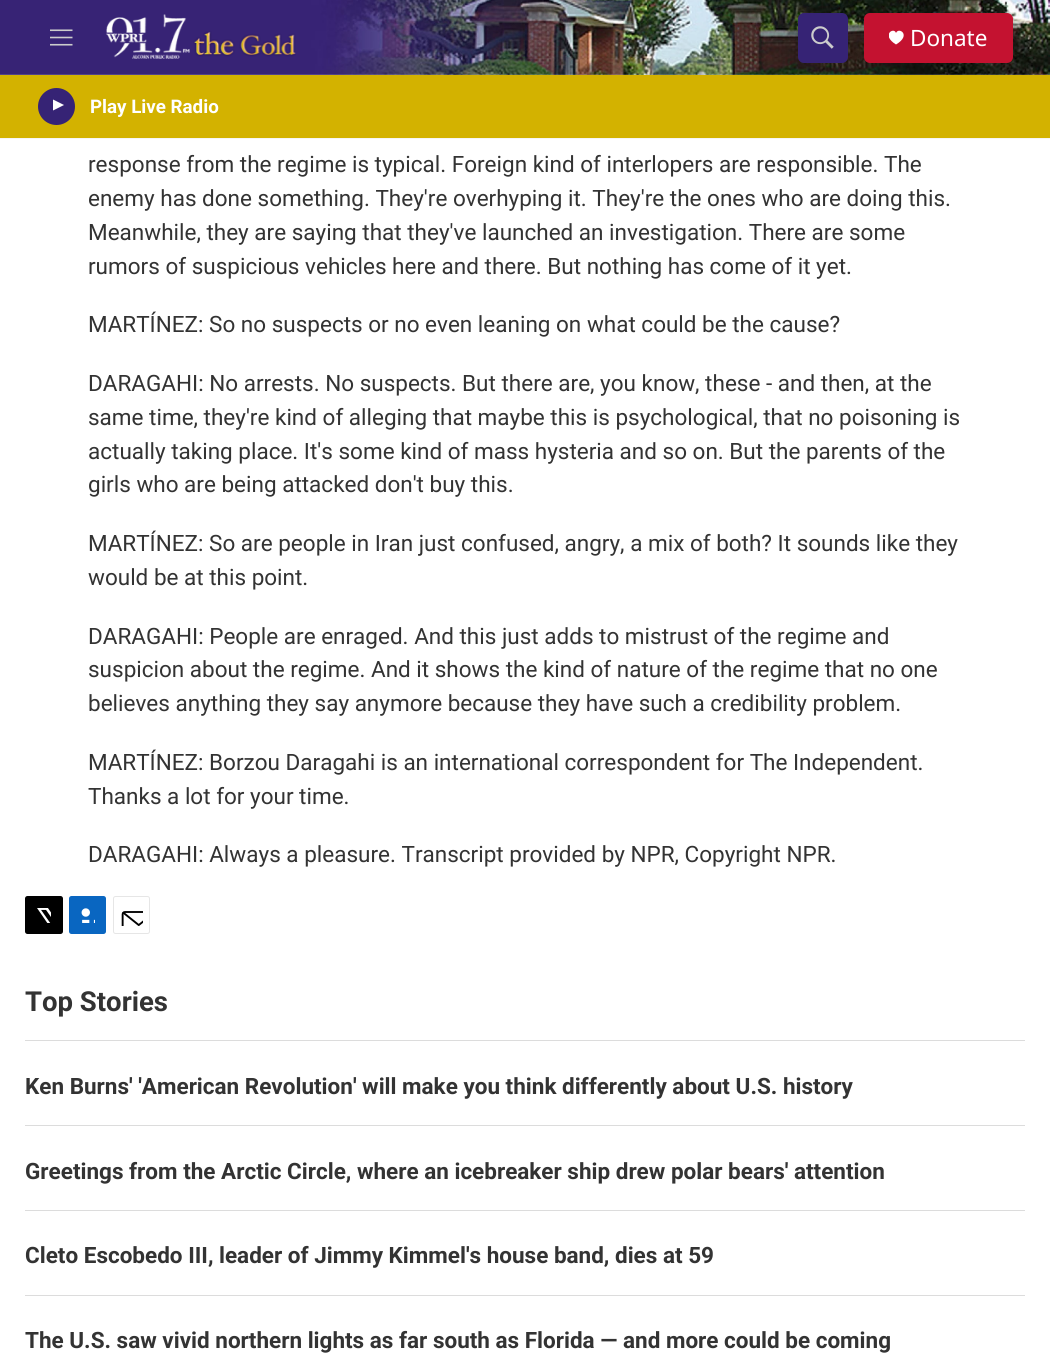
import math
import cairo

surface = cairo.ImageSurface(cairo.FORMAT_RGB24, 1050, 1366)
ctx = cairo.Context(surface)
options = cairo.FontOptions()
options.set_hint_metrics(cairo.HINT_METRICS_OFF)
options.set_hint_style(cairo.HINT_STYLE_NONE)
ctx.set_font_options(options)
ctx.set_miter_limit(4)


def round_rect(x, y, w, h, r):
    ctx.new_sub_path()
    for i, (u, v) in enumerate([(x + w - r, y + h - r), (x + r, y + h - r), (x + r, y + r), (x + w - r, y + r)]):
        ctx.arc(u, v, r, i * math.pi / 2, (i + 1) * math.pi / 2)
    ctx.close_path()


def picture(path, x, y, w, h):
    ctx.save()
    ctx.set_source_surface(cairo.ImageSurface.create_from_png(path), x, y)
    ctx.rectangle(x, y, w, h)
    ctx.fill()
    ctx.restore()


ctx.set_source_rgb(1, 1, 1)
ctx.paint()
ctx.set_source_rgb(0.961, 0.961, 0.961)
ctx.rectangle(0, 138, 1050, 1)
ctx.fill()
picture("img1.png", 0, 0, 1050, 75)
picture("img2.png", 50, 29, 23, 17)
picture("img3.png", 106, 14, 190, 45)
ctx.set_source_rgb(0.212, 0.137, 0.459)
round_rect(798, 13, 50, 50, 6)
ctx.fill()
picture("img4.png", 811, 26, 23, 23)
ctx.set_source_rgb(0.769, 0.071, 0.188)
round_rect(864, 13, 149, 50, 6)
ctx.fill()
ctx.save()
ctx.rectangle(889, 30, 15, 15)
ctx.clip()
ctx.set_source_rgb(1, 1, 1)
ctx.new_path()
ctx.move_to(896, 33)
ctx.curve_to(894, 26.5, 880.5, 35, 896, 44.5)
ctx.curve_to(912, 35, 898.5, 26.5, 896, 33)
ctx.close_path()
ctx.fill()
ctx.restore()
ctx.select_font_face("Noto Sans")
ctx.set_font_size(22.5)
ctx.set_source_rgb(1, 1, 1)
ctx.move_to(910, 46)
ctx.show_text("Donate")
ctx.set_source_rgb(0.827, 0.698, 0)
ctx.rectangle(0, 75, 1050, 63)
ctx.fill()
ctx.set_source_rgb(0.212, 0.137, 0.459)
ctx.arc(56.5, 106.5, 18.5, 0, 2 * math.pi)
ctx.fill()
ctx.save()
ctx.rectangle(53, 98, 14, 18)
ctx.clip()
ctx.set_source_rgb(1, 1, 1)
ctx.new_path()
ctx.move_to(52, 99)
ctx.line_to(64, 105)
ctx.line_to(52, 111)
ctx.close_path()
ctx.fill()
ctx.restore()
ctx.select_font_face("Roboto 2", cairo.FONT_SLANT_NORMAL, cairo.FONT_WEIGHT_BOLD)
ctx.set_font_size(18.75)
ctx.set_source_rgb(1, 1, 1)
ctx.move_to(90, 113)
ctx.show_text("Play Live Radio")
ctx.select_font_face("Roboto")
ctx.set_font_size(22.5)
ctx.set_source_rgb(0.2, 0.2, 0.2)
ctx.move_to(88, 172)
ctx.show_text("response from the regime is typical. Foreign kind of interlopers are responsible. The")
ctx.move_to(88, 206)
ctx.show_text("enemy has done something. They're overhyping it. They're the ones who are doing this.")
ctx.move_to(88, 240)
ctx.show_text("Meanwhile, they are saying that they've launched an investigation. There are some")
ctx.move_to(88, 274)
ctx.show_text("rumors of suspicious vehicles here and there. But nothing has come of it yet.")
ctx.move_to(88, 332)
ctx.show_text("MARTÍNEZ: So no suspects or no even leaning on what could be the cause?")
ctx.move_to(88, 391)
ctx.show_text("DARAGAHI: No arrests. No suspects. But there are, you know, these - and then, at the")
ctx.move_to(88, 425)
ctx.show_text("same time, they're kind of alleging that maybe this is psychological, that no poisoning is")
ctx.move_to(88, 459)
ctx.show_text("actually taking place. It's some kind of mass hysteria and so on. But the parents of the")
ctx.move_to(88, 492)
ctx.show_text("girls who are being attacked don't buy this.")
ctx.move_to(88, 551)
ctx.show_text("MARTÍNEZ: So are people in Iran just confused, angry, a mix of both? It sounds like they")
ctx.move_to(88, 585)
ctx.show_text("would be at this point.")
ctx.move_to(88, 644)
ctx.show_text("DARAGAHI: People are enraged. And this just adds to mistrust of the regime and")
ctx.move_to(88, 677)
ctx.show_text("suspicion about the regime. And it shows the kind of nature of the regime that no one")
ctx.move_to(88, 711)
ctx.show_text("believes anything they say anymore because they have such a credibility problem.")
ctx.move_to(88, 770)
ctx.show_text("MARTÍNEZ: Borzou Daragahi is an international correspondent for The Independent.")
ctx.move_to(88, 804)
ctx.show_text("Thanks a lot for your time.")
ctx.move_to(88, 862)
ctx.show_text("DARAGAHI: Always a pleasure. Transcript provided by NPR, Copyright NPR.")
ctx.set_source_rgb(0, 0, 0)
round_rect(25, 896, 38, 38, 2.5)
ctx.fill()
picture("img5.png", 37, 908, 14, 15)
ctx.set_source_rgb(0.039, 0.4, 0.757)
round_rect(69, 896, 37, 38, 2.5)
ctx.fill()
picture("img6.png", 81, 908, 14, 15)
round_rect(113.5, 896.5, 36, 37, 2)
ctx.set_source_rgb(0.902, 0.902, 0.902)
ctx.set_line_width(1)
ctx.stroke()
picture("img7.png", 121, 911, 22, 15)
ctx.set_source_rgb(0.863, 0.863, 0.863)
ctx.rectangle(25, 1040, 1000, 1)
ctx.fill()
ctx.select_font_face("Roboto", cairo.FONT_SLANT_NORMAL, cairo.FONT_WEIGHT_BOLD)
ctx.set_font_size(27.5)
ctx.set_source_rgb(0.2, 0.2, 0.2)
ctx.move_to(25, 1011)
ctx.show_text("Top Stories")
ctx.set_source_rgb(0.863, 0.863, 0.863)
ctx.rectangle(25, 1125, 1000, 1)
ctx.fill()
ctx.set_font_size(22.5)
ctx.set_source_rgb(0.2, 0.2, 0.2)
ctx.move_to(25, 1094)
ctx.show_text("Ken Burns' 'American Revolution' will make you think differently about U.S. history")
ctx.set_source_rgb(0.863, 0.863, 0.863)
ctx.rectangle(25, 1210, 1000, 1)
ctx.fill()
ctx.set_source_rgb(0.2, 0.2, 0.2)
ctx.move_to(25, 1179)
ctx.show_text("Greetings from the Arctic Circle, where an icebreaker ship drew polar bears' attention")
ctx.set_source_rgb(0.863, 0.863, 0.863)
ctx.rectangle(25, 1295, 1000, 1)
ctx.fill()
ctx.set_source_rgb(0.2, 0.2, 0.2)
ctx.move_to(25, 1263)
ctx.show_text("Cleto Escobedo III, leader of Jimmy Kimmel's house band, dies at 59")
ctx.move_to(25, 1348)
ctx.show_text("The U.S. saw vivid northern lights as far south as Florida — and more could be coming")
surface.write_to_png("page.png")
